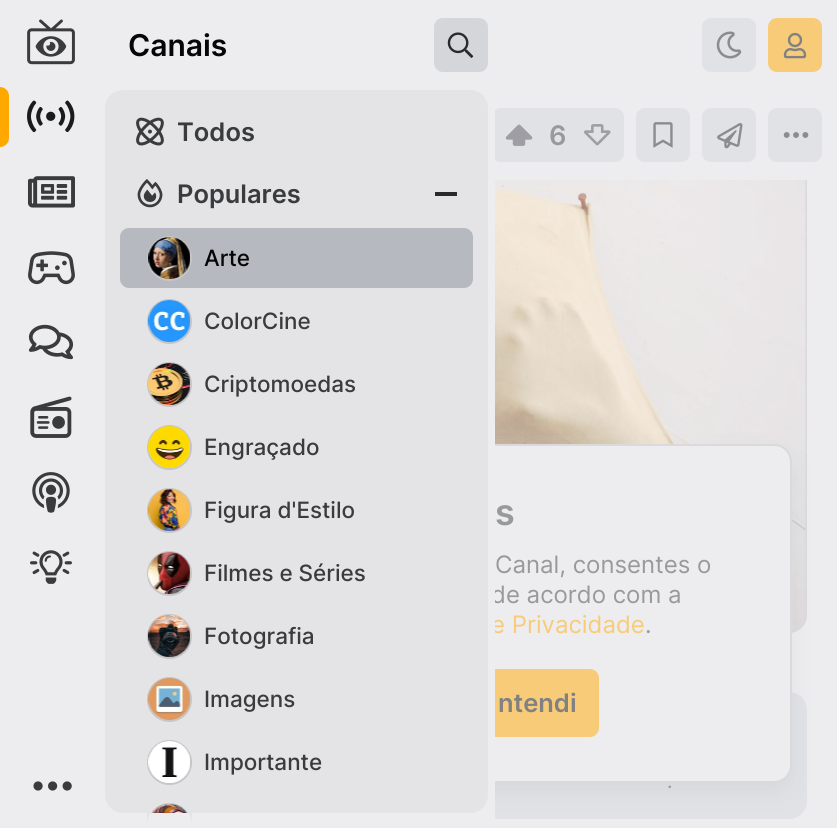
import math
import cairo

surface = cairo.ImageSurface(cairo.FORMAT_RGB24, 837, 828)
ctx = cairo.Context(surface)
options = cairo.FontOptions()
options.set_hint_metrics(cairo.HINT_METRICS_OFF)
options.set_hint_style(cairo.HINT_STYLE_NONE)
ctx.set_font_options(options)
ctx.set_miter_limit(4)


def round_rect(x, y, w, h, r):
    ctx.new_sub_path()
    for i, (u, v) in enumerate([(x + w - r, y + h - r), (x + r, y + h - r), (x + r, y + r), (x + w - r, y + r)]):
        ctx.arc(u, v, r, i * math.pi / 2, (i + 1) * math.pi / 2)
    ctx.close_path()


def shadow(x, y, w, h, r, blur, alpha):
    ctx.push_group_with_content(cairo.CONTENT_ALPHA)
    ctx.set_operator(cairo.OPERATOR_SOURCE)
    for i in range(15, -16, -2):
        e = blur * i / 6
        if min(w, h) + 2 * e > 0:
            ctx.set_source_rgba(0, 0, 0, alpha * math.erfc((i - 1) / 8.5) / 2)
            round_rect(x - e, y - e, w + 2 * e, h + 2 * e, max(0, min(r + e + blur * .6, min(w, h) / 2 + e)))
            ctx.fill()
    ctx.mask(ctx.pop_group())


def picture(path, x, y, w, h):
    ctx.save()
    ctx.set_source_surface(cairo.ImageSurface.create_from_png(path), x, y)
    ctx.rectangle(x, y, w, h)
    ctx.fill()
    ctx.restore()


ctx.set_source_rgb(0.929, 0.929, 0.937)
ctx.paint()
round_rect(31, 114, 775, 518, 17)
ctx.set_source_rgb(0.855, 0.855, 0.863)
ctx.stroke()
ctx.set_source_rgb(0.882, 0.886, 0.898)
round_rect(30, 692, 777, 127, 18)
ctx.fill()
ctx.set_source_rgb(0.929, 0.929, 0.937)
ctx.rectangle(30, 113, 75, 706)
ctx.fill()
picture("img1.png", 27, 19, 48, 46)
ctx.set_source_rgb(1, 0.659, 0)
ctx.new_path()
ctx.move_to(0, 87)
ctx.curve_to(5, 87, 9, 91, 9, 96)
ctx.line_to(9, 138)
ctx.curve_to(9, 143, 5, 147, 0, 147)
ctx.close_path()
ctx.fill()
picture("img2.png", 27, 100, 48, 33)
picture("img3.png", 27, 176, 48, 32)
picture("img4.png", 28, 251, 47, 34)
picture("img5.png", 28, 324, 46, 36)
picture("img6.png", 30, 396, 42, 42)
picture("img7.png", 32, 472, 38, 41)
picture("img8.png", 30, 550, 42, 34)
picture("img9.png", 33, 781, 39, 10)
ctx.set_source_rgb(0.929, 0.929, 0.937)
ctx.rectangle(495, 113, 312, 67)
ctx.fill()
ctx.set_source_rgb(0.882, 0.886, 0.898)
round_rect(492, 108, 132, 54, 9)
ctx.fill()
picture("img31.png", 792, 180, 14, 452)
picture("img30.png", 495, 180, 311, 452)
ctx.set_source_rgb(0.467, 0.467, 0.471)
shadow(267, 453, 525, 339, 18, 11, 0.1)
ctx.set_source_rgb(0.929, 0.929, 0.937)
round_rect(268, 445, 523, 337, 17)
ctx.fill_preserve()
ctx.set_source_rgb(0.855, 0.855, 0.863)
ctx.stroke()
ctx.select_font_face("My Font")
ctx.set_font_size(24)
ctx.set_source_rgb(0.596, 0.6, 0.604)
ctx.move_to(491, 603)
ctx.show_text("de acordo com a")
ctx.set_source_rgb(0.965, 0.796, 0.471)
ctx.move_to(491, 633)
ctx.show_text("e Privacidade")
round_rect(461, 669, 138, 68, 9)
ctx.fill()
ctx.set_source_rgb(0.929, 0.929, 0.937)
ctx.rectangle(105, 110, 390, 709)
ctx.fill()
ctx.select_font_face("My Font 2")
ctx.set_font_size(30)
ctx.set_source_rgb(0.02, 0.024, 0.027)
ctx.move_to(128, 56)
ctx.show_text("Canais")
ctx.set_source_rgb(0.831, 0.839, 0.855)
round_rect(434, 18, 54, 54, 9)
ctx.fill()
picture("img10.png", 447, 32, 27, 26)
ctx.set_source_rgb(0.894, 0.894, 0.906)
round_rect(105, 90, 383, 723, 18)
ctx.fill()
picture("img11.png", 136, 117, 28, 29)
ctx.set_font_size(25.5)
ctx.set_source_rgb(0.227, 0.231, 0.235)
ctx.move_to(177, 141)
ctx.show_text("Todos")
picture("img12.png", 137, 179, 26, 29)
ctx.move_to(177, 203)
ctx.show_text("Populares")
ctx.set_source_rgb(0.161, 0.165, 0.169)
ctx.rectangle(435, 192, 22, 4)
ctx.fill()
ctx.set_source_rgb(0.714, 0.725, 0.749)
round_rect(120, 228, 353, 60, 9)
ctx.fill()
ctx.arc(169.5, 258.5, 21.5, 0, 2 * math.pi)
ctx.set_source_rgb(0.776, 0.776, 0.784)
ctx.stroke()
picture("img13.png", 148, 237, 42, 42)
ctx.select_font_face("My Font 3")
ctx.set_font_size(22.5)
ctx.set_source_rgb(0.02, 0.024, 0.027)
ctx.move_to(204, 266)
ctx.show_text("Arte")
ctx.new_path()
ctx.arc(169.5, 321.5, 21.5, 0, 2 * math.pi)
ctx.set_source_rgb(0.776, 0.776, 0.784)
ctx.stroke()
picture("img14.png", 148, 300, 42, 42)
ctx.set_source_rgb(0.227, 0.231, 0.235)
ctx.move_to(204, 329)
ctx.show_text("ColorCine")
ctx.new_path()
ctx.arc(169.5, 384.5, 21.5, 0, 2 * math.pi)
ctx.set_source_rgb(0.776, 0.776, 0.784)
ctx.stroke()
picture("img15.png", 148, 363, 42, 42)
ctx.set_source_rgb(0.227, 0.231, 0.235)
ctx.move_to(204, 392)
ctx.show_text("Criptomoedas")
ctx.new_path()
ctx.arc(169.5, 447.5, 21.5, 0, 2 * math.pi)
ctx.set_source_rgb(0.776, 0.776, 0.784)
ctx.stroke()
picture("img16.png", 148, 426, 42, 42)
ctx.set_source_rgb(0.227, 0.231, 0.235)
ctx.move_to(204, 455)
ctx.show_text("Engraçado")
ctx.new_path()
ctx.arc(169.5, 510.5, 21.5, 0, 2 * math.pi)
ctx.set_source_rgb(0.776, 0.776, 0.784)
ctx.stroke()
picture("img17.png", 148, 489, 42, 42)
ctx.set_source_rgb(0.227, 0.231, 0.235)
ctx.move_to(204, 518)
ctx.show_text("Figura d'Estilo")
ctx.new_path()
ctx.arc(169.5, 573.5, 21.5, 0, 2 * math.pi)
ctx.set_source_rgb(0.776, 0.776, 0.784)
ctx.stroke()
picture("img18.png", 148, 552, 42, 42)
ctx.set_source_rgb(0.227, 0.231, 0.235)
ctx.move_to(204, 581)
ctx.show_text("Filmes e Séries")
ctx.new_path()
ctx.arc(169.5, 636.5, 21.5, 0, 2 * math.pi)
ctx.set_source_rgb(0.776, 0.776, 0.784)
ctx.stroke()
picture("img19.png", 148, 615, 42, 42)
ctx.set_source_rgb(0.227, 0.231, 0.235)
ctx.move_to(204, 644)
ctx.show_text("Fotografia")
ctx.new_path()
ctx.arc(169.5, 699.5, 21.5, 0, 2 * math.pi)
ctx.set_source_rgb(0.776, 0.776, 0.784)
ctx.stroke()
picture("img20.png", 148, 678, 42, 42)
ctx.set_source_rgb(0.227, 0.231, 0.235)
ctx.move_to(204, 707)
ctx.show_text("Imagens")
ctx.new_path()
ctx.arc(169.5, 762.5, 21.5, 0, 2 * math.pi)
ctx.set_source_rgb(0.776, 0.776, 0.784)
ctx.stroke()
picture("img21.png", 148, 741, 42, 42)
ctx.set_source_rgb(0.227, 0.231, 0.235)
ctx.move_to(204, 770)
ctx.show_text("Importante")
ctx.set_source_rgb(0.894, 0.894, 0.906)
ctx.new_path()
ctx.move_to(169.5, 803)
ctx.curve_to(182, 803, 192, 813, 192, 825.5)
ctx.line_to(192, 813)
ctx.line_to(147, 813)
ctx.line_to(147, 825.5)
ctx.curve_to(147, 813, 157, 803, 169.5, 803)
ctx.close_path()
ctx.fill()
ctx.set_source_rgb(0.776, 0.776, 0.784)
ctx.new_path()
ctx.move_to(169.5, 803)
ctx.curve_to(161.5, 803, 155, 807, 151, 813)
ctx.line_to(153.5, 813)
ctx.curve_to(161.5, 802.5, 177.5, 802.5, 185.5, 813)
ctx.line_to(188, 813)
ctx.curve_to(184, 807, 177.5, 803, 169.5, 803)
ctx.close_path()
ctx.fill()
picture("img22.png", 152, 804, 35, 9)
ctx.set_source_rgb(0.882, 0.886, 0.898)
round_rect(702, 18, 54, 54, 9)
ctx.fill()
picture("img23.png", 716, 31, 26, 28)
ctx.set_source_rgb(0.965, 0.796, 0.471)
round_rect(768, 18, 54, 54, 9)
ctx.fill()
picture("img24.png", 783, 32, 24, 27)
picture("img25.png", 505, 124, 28, 22)
ctx.select_font_face("My Font 2")
ctx.set_font_size(27)
ctx.set_source_rgb(0.596, 0.6, 0.604)
ctx.move_to(549, 145)
ctx.show_text("6")
picture("img26.png", 584, 124, 27, 22)
ctx.set_source_rgb(0.882, 0.886, 0.898)
round_rect(636, 108, 54, 54, 9)
ctx.fill()
picture("img27.png", 653, 122, 20, 26)
round_rect(702, 108, 54, 54, 9)
ctx.fill()
picture("img28.png", 717, 123, 26, 26)
round_rect(768, 108, 54, 54, 9)
ctx.fill()
picture("img29.png", 783, 132, 26, 6)
ctx.select_font_face("My Font")
ctx.set_font_size(20)
ctx.set_source_rgb(0.596, 0.6, 0.604)
ctx.move_to(667, 788)
ctx.show_text(".")
ctx.select_font_face("My Font 2")
ctx.set_font_size(36)
ctx.move_to(495, 525)
ctx.show_text("s")
ctx.select_font_face("My Font")
ctx.set_font_size(24)
ctx.move_to(495, 573)
ctx.show_text("Canal, consentes o")
ctx.move_to(645, 633)
ctx.show_text(".")
ctx.select_font_face("My Font 2")
ctx.set_font_size(25.5)
ctx.set_source_rgb(0.506, 0.506, 0.51)
ctx.move_to(498, 712)
ctx.show_text("ntendi")
surface.write_to_png("page.png")
